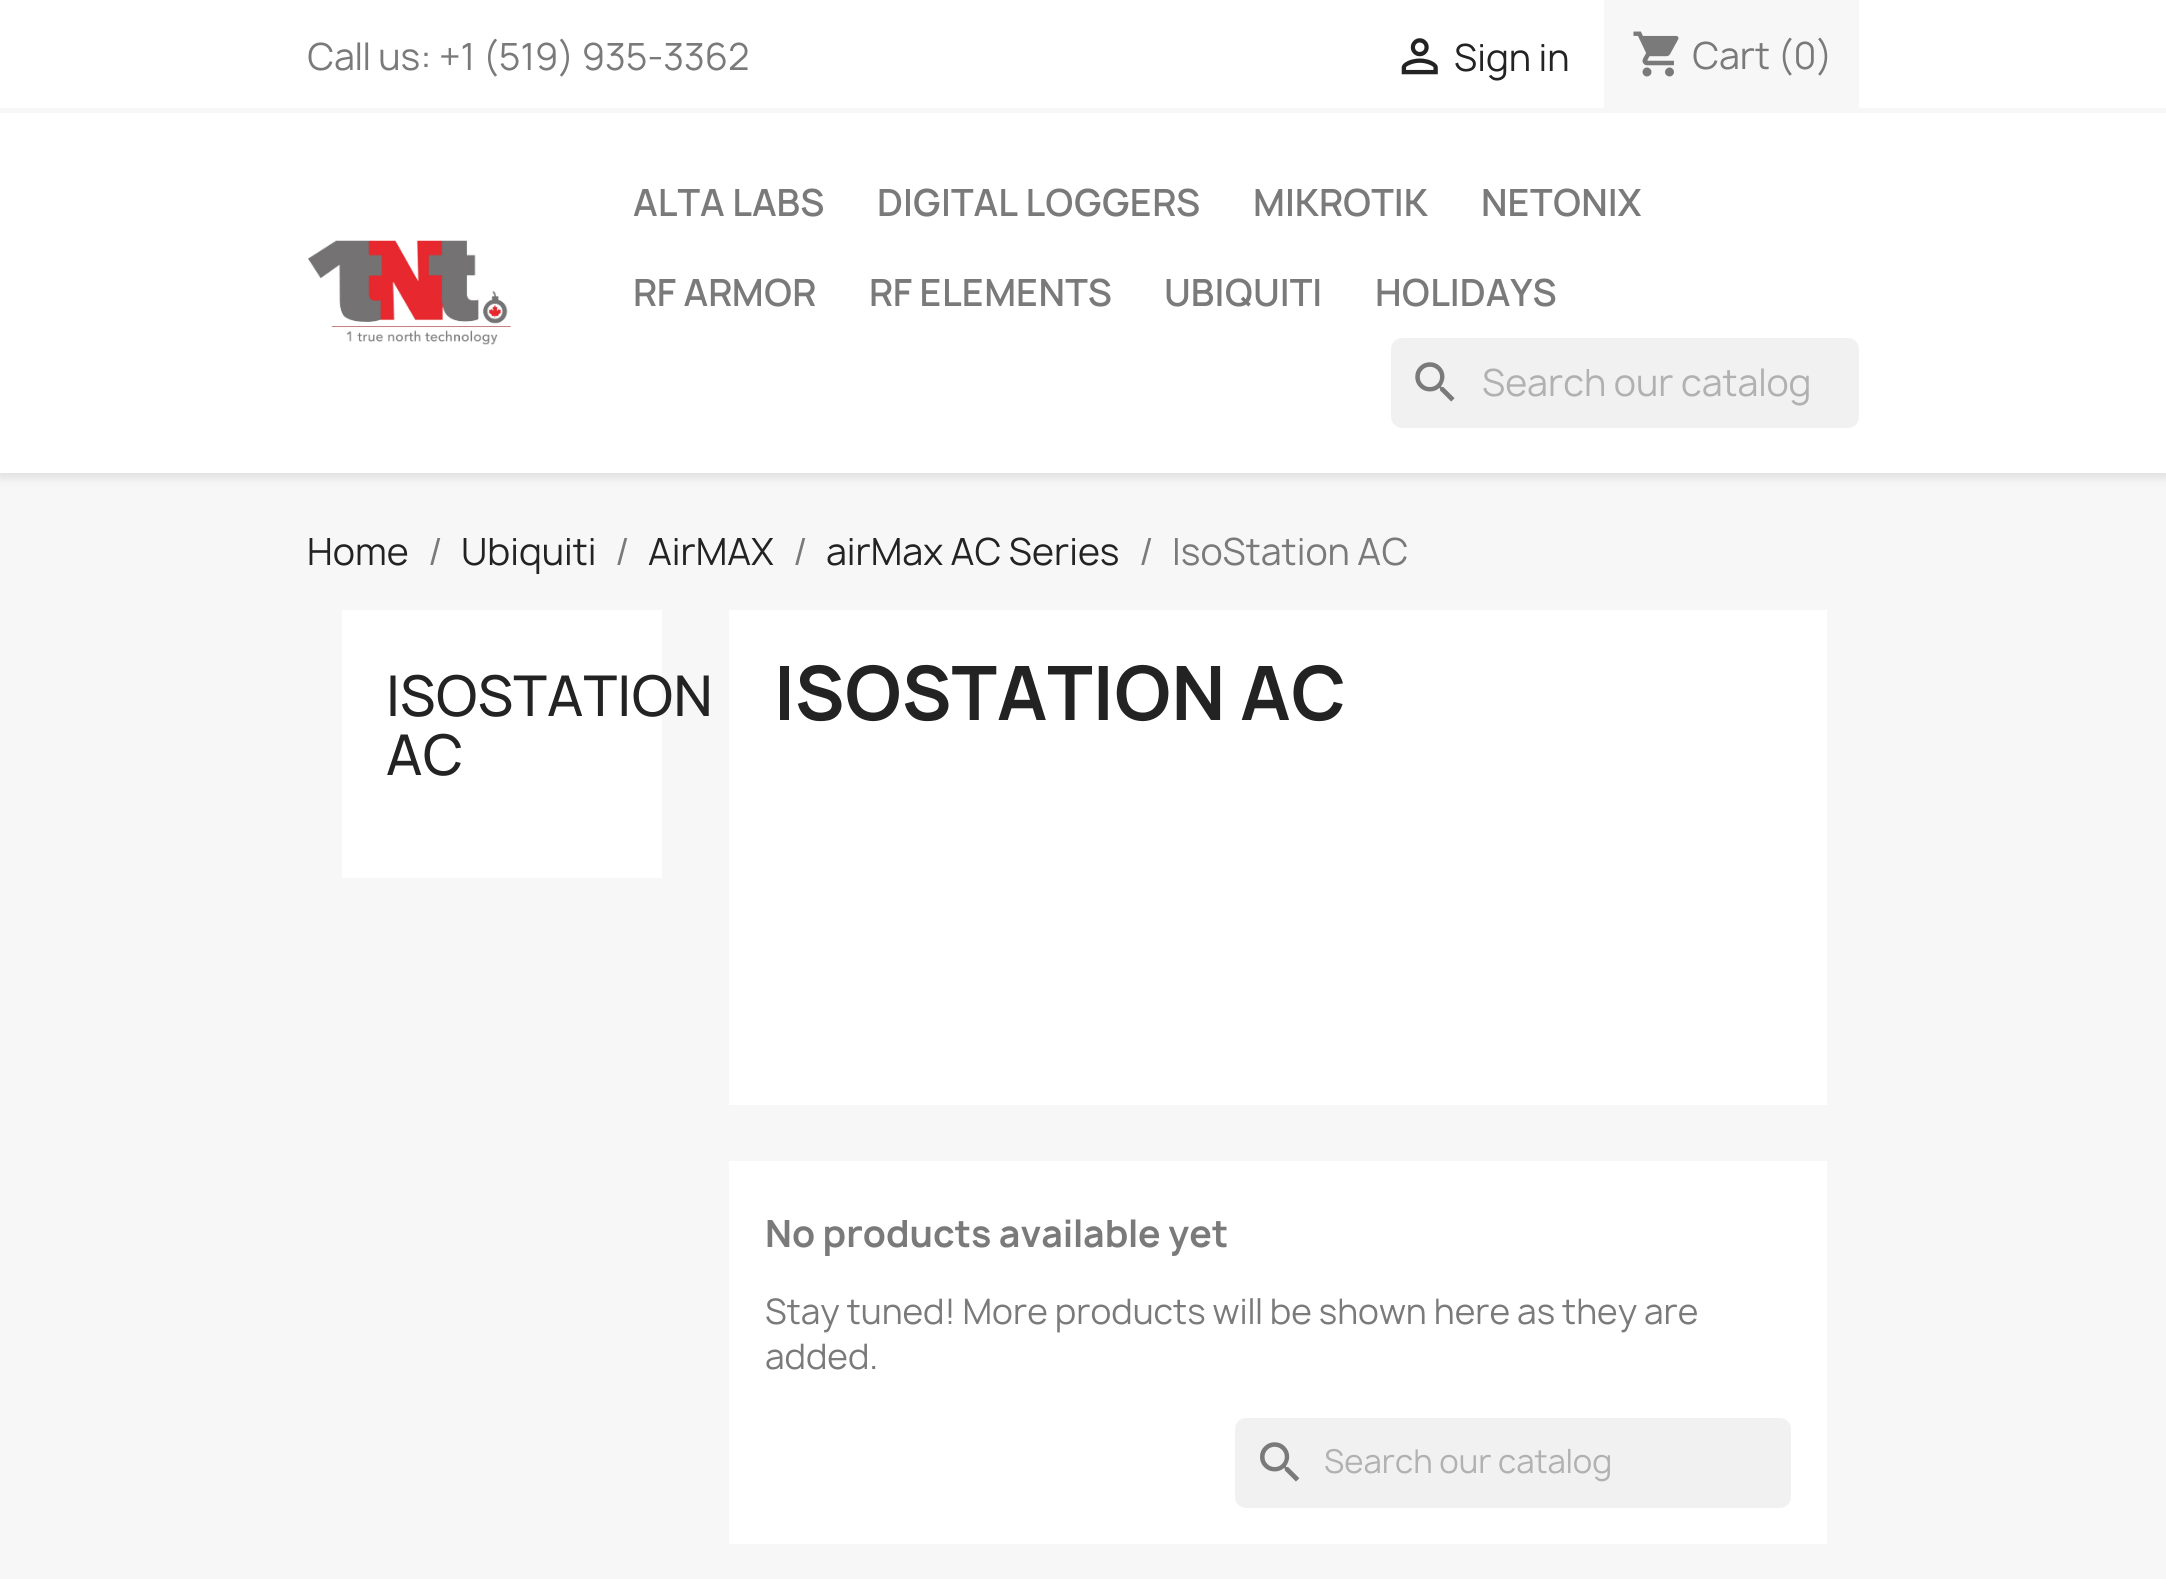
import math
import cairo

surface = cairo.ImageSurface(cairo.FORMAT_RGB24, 2166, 1579)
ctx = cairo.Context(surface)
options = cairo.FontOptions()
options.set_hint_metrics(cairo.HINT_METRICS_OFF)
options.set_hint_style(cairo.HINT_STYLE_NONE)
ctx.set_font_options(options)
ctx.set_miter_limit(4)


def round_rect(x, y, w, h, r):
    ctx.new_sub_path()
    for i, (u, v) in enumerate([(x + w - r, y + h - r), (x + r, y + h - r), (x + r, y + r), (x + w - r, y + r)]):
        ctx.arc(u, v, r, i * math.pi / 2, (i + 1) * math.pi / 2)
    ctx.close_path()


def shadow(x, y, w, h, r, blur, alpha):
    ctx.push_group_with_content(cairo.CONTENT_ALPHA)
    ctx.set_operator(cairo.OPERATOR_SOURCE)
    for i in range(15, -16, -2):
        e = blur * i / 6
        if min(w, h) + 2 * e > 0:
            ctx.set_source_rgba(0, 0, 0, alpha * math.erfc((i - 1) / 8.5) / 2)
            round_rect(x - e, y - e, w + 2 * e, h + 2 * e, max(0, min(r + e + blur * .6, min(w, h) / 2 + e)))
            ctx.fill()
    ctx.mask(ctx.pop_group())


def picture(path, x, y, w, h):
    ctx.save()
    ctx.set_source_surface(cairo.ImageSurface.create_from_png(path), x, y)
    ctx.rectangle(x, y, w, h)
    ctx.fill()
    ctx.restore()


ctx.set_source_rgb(0.965, 0.965, 0.965)
ctx.paint()
ctx.set_source_rgb(0, 0, 0)
shadow(0, 5, 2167, 472, 0, 5.5, 0.11)
ctx.set_source_rgb(1, 1, 1)
ctx.rectangle(0, 0, 2166, 473)
ctx.fill()
ctx.set_source_rgb(0.965, 0.965, 0.965)
ctx.rectangle(0, 108, 2166, 5)
ctx.fill()
ctx.select_font_face("Manrope")
ctx.set_font_size(36)
ctx.set_source_rgb(0.478, 0.478, 0.478)
ctx.move_to(307, 70)
ctx.show_text("Call us: +1 (519) 935-3362")
picture("img1.png", 1401, 38, 37, 37)
ctx.set_source_rgb(0.137, 0.137, 0.137)
ctx.move_to(1454, 71)
ctx.show_text("Sign in")
ctx.set_source_rgb(0.965, 0.965, 0.965)
ctx.rectangle(1604, 0, 255, 108)
ctx.fill()
picture("img2.png", 1633, 31, 46, 46)
ctx.set_source_rgb(0.478, 0.478, 0.478)
ctx.move_to(1692, 69)
ctx.show_text("Cart (0)")
picture("img3.png", 308, 240, 203, 105)
ctx.select_font_face("Manrope SemiBold")
ctx.move_to(633, 216)
ctx.show_text("ALTA LABS")
ctx.move_to(877, 216)
ctx.show_text("DIGITAL LOGGERS")
ctx.move_to(1253, 216)
ctx.show_text("MIKROTIK")
ctx.move_to(1481, 216)
ctx.show_text("NETONIX")
ctx.move_to(633, 306)
ctx.show_text("RF ARMOR")
ctx.move_to(869, 306)
ctx.show_text("RF ELEMENTS")
ctx.move_to(1164, 306)
ctx.show_text("UBIQUITI")
ctx.move_to(1375, 306)
ctx.show_text("HOLIDAYS")
ctx.set_source_rgb(0.945, 0.945, 0.945)
round_rect(1391, 338, 468, 90, 11)
ctx.fill()
picture("img4.png", 1415, 362, 40, 40)
ctx.select_font_face("Manrope")
ctx.set_source_rgb(0.694, 0.694, 0.694)
ctx.move_to(1482, 396)
ctx.show_text("Search our catalog")
ctx.set_source_rgb(0.137, 0.137, 0.137)
ctx.move_to(307, 565)
ctx.show_text("Home")
ctx.set_source_rgb(0.478, 0.478, 0.478)
ctx.move_to(428, 565)
ctx.show_text("/")
ctx.set_source_rgb(0.137, 0.137, 0.137)
ctx.move_to(461, 565)
ctx.show_text("Ubiquiti")
ctx.set_source_rgb(0.478, 0.478, 0.478)
ctx.move_to(615, 565)
ctx.show_text("/")
ctx.set_source_rgb(0.137, 0.137, 0.137)
ctx.move_to(648, 565)
ctx.show_text("AirMAX")
ctx.set_source_rgb(0.478, 0.478, 0.478)
ctx.move_to(793, 565)
ctx.show_text("/")
ctx.set_source_rgb(0.137, 0.137, 0.137)
ctx.move_to(826, 565)
ctx.show_text("airMax AC Series")
ctx.set_source_rgb(0.478, 0.478, 0.478)
ctx.move_to(1139, 565)
ctx.show_text("/")
ctx.move_to(1172, 565)
ctx.show_text("IsoStation AC")
ctx.set_source_rgb(1, 1, 1)
ctx.rectangle(342, 610, 320, 268)
ctx.fill()
ctx.select_font_face("Manrope Medium")
ctx.set_font_size(54)
ctx.set_source_rgb(0.137, 0.137, 0.137)
ctx.move_to(386, 716)
ctx.show_text("ISOSTATION")
ctx.move_to(386, 775)
ctx.show_text("AC")
ctx.set_source_rgb(1, 1, 1)
ctx.rectangle(729, 610, 1098, 495)
ctx.fill()
ctx.select_font_face("Manrope", cairo.FONT_SLANT_NORMAL, cairo.FONT_WEIGHT_BOLD)
ctx.set_font_size(72)
ctx.set_source_rgb(0.137, 0.137, 0.137)
ctx.move_to(774, 720)
ctx.show_text("ISOSTATION AC")
ctx.set_source_rgb(1, 1, 1)
ctx.rectangle(729, 1161, 1098, 383)
ctx.fill()
ctx.set_font_size(36)
ctx.set_source_rgb(0.478, 0.478, 0.478)
ctx.move_to(765, 1247)
ctx.show_text("No products available yet")
ctx.select_font_face("Manrope")
ctx.set_font_size(33.75)
ctx.move_to(765, 1324)
ctx.show_text("Stay tuned! More products will be shown here as they are")
ctx.move_to(765, 1369)
ctx.show_text("added.")
ctx.set_source_rgb(0.945, 0.945, 0.945)
round_rect(1235, 1418, 556, 90, 11)
ctx.fill()
picture("img5.png", 1260, 1442, 40, 40)
ctx.set_font_size(31.5)
ctx.set_source_rgb(0.694, 0.694, 0.694)
ctx.move_to(1324, 1473)
ctx.show_text("Search our catalog")
surface.write_to_png("page.png")
